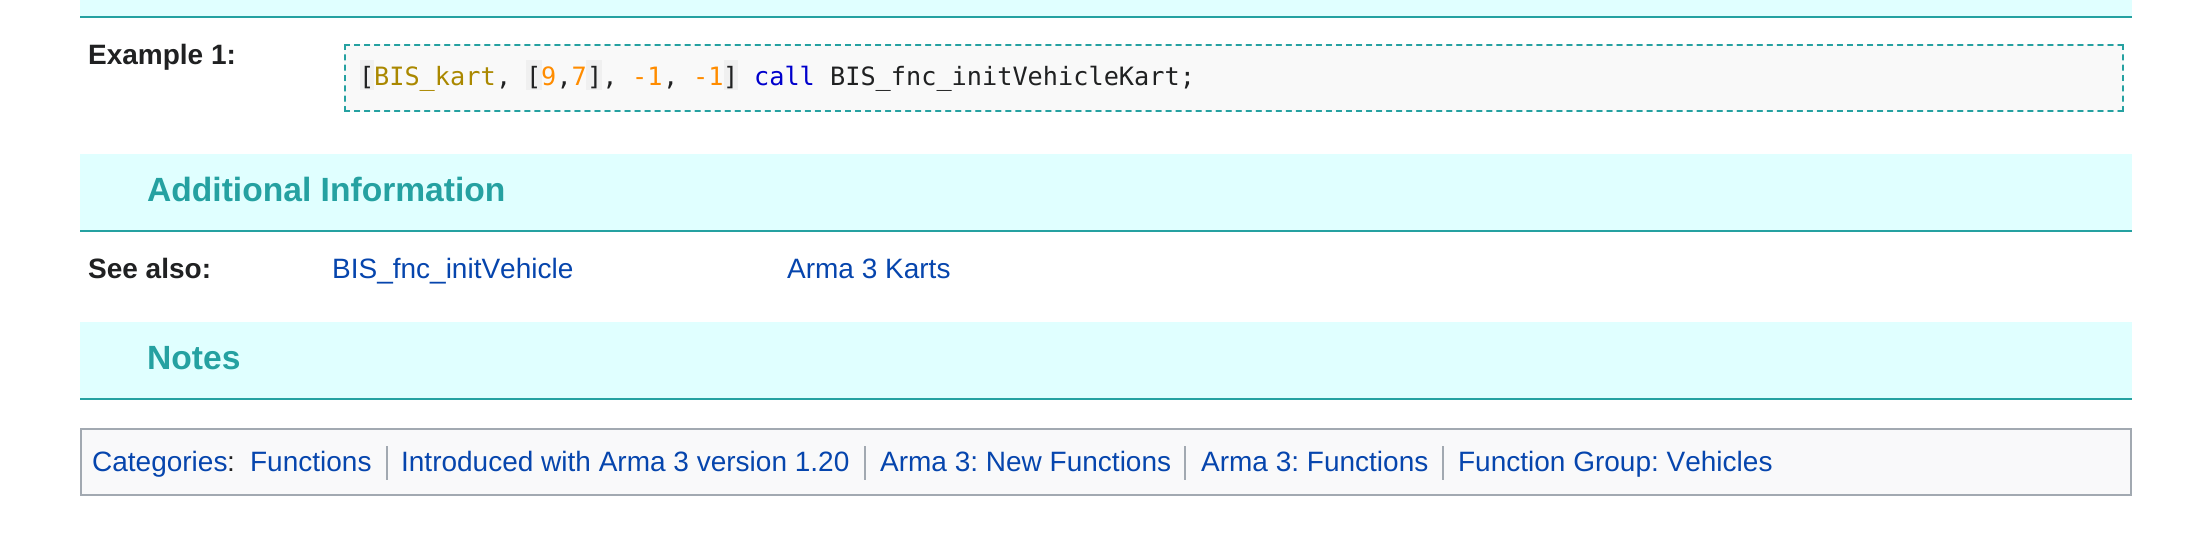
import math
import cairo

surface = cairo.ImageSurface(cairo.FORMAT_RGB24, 2211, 546)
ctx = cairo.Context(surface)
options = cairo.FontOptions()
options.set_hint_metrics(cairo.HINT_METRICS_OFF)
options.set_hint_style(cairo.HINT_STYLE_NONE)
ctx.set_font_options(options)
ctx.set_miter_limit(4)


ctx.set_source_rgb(1, 1, 1)
ctx.paint()
ctx.set_source_rgb(0.878, 1, 1)
ctx.rectangle(80, 0, 2052, 16)
ctx.fill()
ctx.set_source_rgb(0.145, 0.631, 0.631)
ctx.rectangle(80, 16, 2052, 2)
ctx.fill()
ctx.select_font_face("Liberation Sans", cairo.FONT_SLANT_NORMAL, cairo.FONT_WEIGHT_BOLD)
ctx.set_font_size(28)
ctx.set_source_rgb(0.125, 0.129, 0.133)
ctx.move_to(88, 64)
ctx.show_text("Example 1:")
ctx.set_source_rgb(0.976, 0.976, 0.976)
ctx.rectangle(344, 44, 1780, 68)
ctx.fill()
ctx.new_path()
ctx.move_to(344, 45)
ctx.line_to(2124, 45)
ctx.set_source_rgb(0.145, 0.631, 0.631)
ctx.set_dash([6, 4.02])
ctx.stroke()
ctx.new_path()
ctx.move_to(2123, 44)
ctx.line_to(2123, 112)
ctx.set_dash([6, 4.34])
ctx.stroke()
ctx.new_path()
ctx.move_to(344, 111)
ctx.line_to(2124, 111)
ctx.set_dash([6, 4.02])
ctx.stroke()
ctx.new_path()
ctx.move_to(345, 44)
ctx.line_to(345, 112)
ctx.set_dash([6, 4.34])
ctx.stroke()
ctx.set_source_rgb(0.941, 0.941, 0.941)
ctx.rectangle(360, 60, 14, 30)
ctx.fill()
ctx.select_font_face("DejaVu Sans Mono")
ctx.set_font_size(25.25)
ctx.set_source_rgb(0.125, 0.129, 0.133)
ctx.move_to(359, 85)
ctx.show_text("[")
ctx.set_source_rgb(0.667, 0.533, 0)
ctx.move_to(374, 85)
ctx.show_text("BIS_kart")
ctx.set_source_rgb(0.941, 0.941, 0.941)
ctx.rectangle(526, 60, 16, 30)
ctx.fill()
ctx.set_source_rgb(0.125, 0.129, 0.133)
ctx.move_to(526, 85)
ctx.show_text("[ ,")
ctx.set_source_rgb(0.941, 0.941, 0.941)
ctx.rectangle(586, 60, 16, 30)
ctx.fill()
ctx.set_source_rgb(0.125, 0.129, 0.133)
ctx.move_to(587, 85)
ctx.show_text("],")
ctx.set_source_rgb(0.941, 0.941, 0.941)
ctx.rectangle(724, 60, 14, 30)
ctx.fill()
ctx.set_source_rgb(0.125, 0.129, 0.133)
ctx.move_to(723, 85)
ctx.show_text("]")
ctx.set_source_rgb(0, 0, 0.8)
ctx.move_to(754, 85)
ctx.show_text("call")
ctx.set_source_rgb(0.125, 0.129, 0.133)
ctx.move_to(830, 85)
ctx.show_text("BIS_fnc_initVehicleKart;")
ctx.move_to(496, 85)
ctx.show_text(",")
ctx.set_source_rgb(1, 0.549, 0)
ctx.move_to(541, 85)
ctx.show_text("9 7")
ctx.move_to(632, 85)
ctx.show_text("-1")
ctx.set_source_rgb(0.125, 0.129, 0.133)
ctx.move_to(663, 85)
ctx.show_text(",")
ctx.set_source_rgb(1, 0.549, 0)
ctx.move_to(693, 85)
ctx.show_text("-1")
ctx.set_source_rgb(0.878, 1, 1)
ctx.rectangle(80, 154, 2052, 76)
ctx.fill()
ctx.set_source_rgb(0.145, 0.631, 0.631)
ctx.rectangle(80, 230, 2052, 2)
ctx.fill()
ctx.select_font_face("Liberation Sans", cairo.FONT_SLANT_NORMAL, cairo.FONT_WEIGHT_BOLD)
ctx.set_font_size(33.6)
ctx.move_to(147, 201)
ctx.show_text("Additional Information")
ctx.set_font_size(28)
ctx.set_source_rgb(0.125, 0.129, 0.133)
ctx.move_to(88, 278)
ctx.show_text("See also:")
ctx.select_font_face("Liberation Sans")
ctx.set_source_rgb(0.024, 0.271, 0.678)
ctx.move_to(332, 278)
ctx.show_text("BIS_fnc_initVehicle")
ctx.move_to(787, 278)
ctx.show_text("Arma 3 Karts")
ctx.set_source_rgb(0.878, 1, 1)
ctx.rectangle(80, 322, 2052, 76)
ctx.fill()
ctx.set_source_rgb(0.145, 0.631, 0.631)
ctx.rectangle(80, 398, 2052, 2)
ctx.fill()
ctx.select_font_face("Liberation Sans", cairo.FONT_SLANT_NORMAL, cairo.FONT_WEIGHT_BOLD)
ctx.set_font_size(33.6)
ctx.move_to(147, 369)
ctx.show_text("Notes")
ctx.set_source_rgb(0.973, 0.976, 0.98)
ctx.rectangle(81, 429, 2050, 66)
ctx.fill_preserve()
ctx.set_source_rgb(0.635, 0.663, 0.694)
ctx.set_dash([])
ctx.stroke()
ctx.select_font_face("Liberation Sans")
ctx.set_font_size(28)
ctx.set_source_rgb(0.024, 0.271, 0.678)
ctx.move_to(92, 471)
ctx.show_text("Categories")
ctx.set_source_rgb(0.125, 0.129, 0.133)
ctx.move_to(227, 471)
ctx.show_text(":")
ctx.set_source_rgb(0.024, 0.271, 0.678)
ctx.move_to(250, 471)
ctx.show_text("Functions")
ctx.set_source_rgb(0.635, 0.663, 0.694)
ctx.rectangle(386, 446, 2, 34)
ctx.fill()
ctx.set_source_rgb(0.024, 0.271, 0.678)
ctx.move_to(401, 471)
ctx.show_text("Introduced with Arma 3 version 1.20")
ctx.set_source_rgb(0.635, 0.663, 0.694)
ctx.rectangle(864, 446, 2, 34)
ctx.fill()
ctx.set_source_rgb(0.024, 0.271, 0.678)
ctx.move_to(880, 471)
ctx.show_text("Arma 3: New Functions")
ctx.set_source_rgb(0.635, 0.663, 0.694)
ctx.rectangle(1184, 446, 2, 34)
ctx.fill()
ctx.set_source_rgb(0.024, 0.271, 0.678)
ctx.move_to(1201, 471)
ctx.show_text("Arma 3: Functions")
ctx.set_source_rgb(0.635, 0.663, 0.694)
ctx.rectangle(1442, 446, 2, 34)
ctx.fill()
ctx.set_source_rgb(0.024, 0.271, 0.678)
ctx.move_to(1458, 471)
ctx.show_text("Function Group: Vehicles")
surface.write_to_png("page.png")
